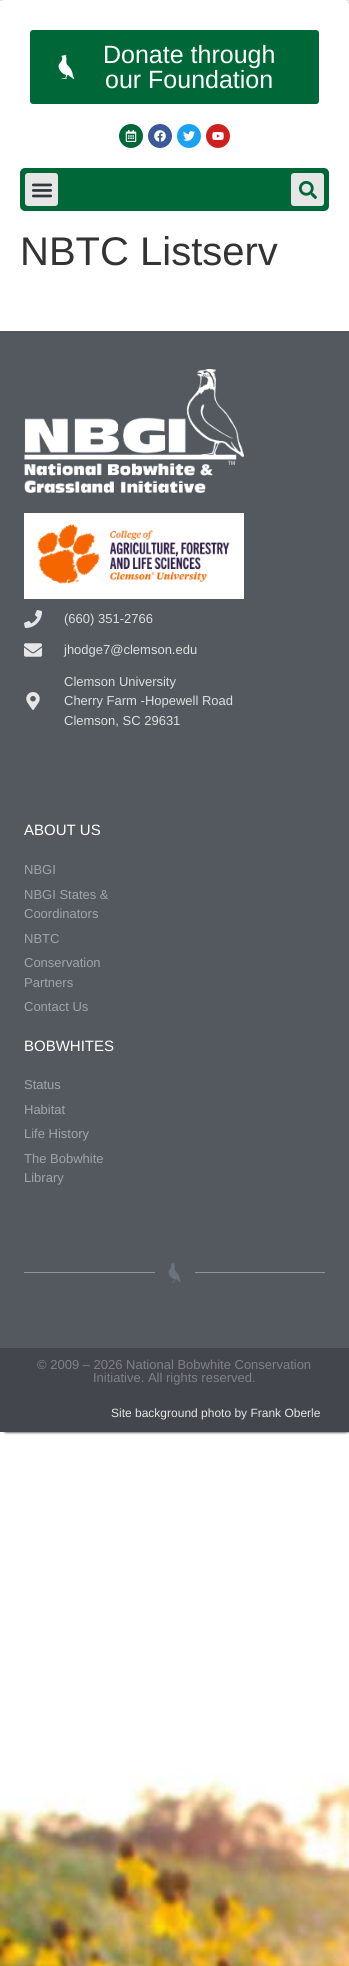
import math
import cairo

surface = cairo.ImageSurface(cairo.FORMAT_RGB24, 349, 1966)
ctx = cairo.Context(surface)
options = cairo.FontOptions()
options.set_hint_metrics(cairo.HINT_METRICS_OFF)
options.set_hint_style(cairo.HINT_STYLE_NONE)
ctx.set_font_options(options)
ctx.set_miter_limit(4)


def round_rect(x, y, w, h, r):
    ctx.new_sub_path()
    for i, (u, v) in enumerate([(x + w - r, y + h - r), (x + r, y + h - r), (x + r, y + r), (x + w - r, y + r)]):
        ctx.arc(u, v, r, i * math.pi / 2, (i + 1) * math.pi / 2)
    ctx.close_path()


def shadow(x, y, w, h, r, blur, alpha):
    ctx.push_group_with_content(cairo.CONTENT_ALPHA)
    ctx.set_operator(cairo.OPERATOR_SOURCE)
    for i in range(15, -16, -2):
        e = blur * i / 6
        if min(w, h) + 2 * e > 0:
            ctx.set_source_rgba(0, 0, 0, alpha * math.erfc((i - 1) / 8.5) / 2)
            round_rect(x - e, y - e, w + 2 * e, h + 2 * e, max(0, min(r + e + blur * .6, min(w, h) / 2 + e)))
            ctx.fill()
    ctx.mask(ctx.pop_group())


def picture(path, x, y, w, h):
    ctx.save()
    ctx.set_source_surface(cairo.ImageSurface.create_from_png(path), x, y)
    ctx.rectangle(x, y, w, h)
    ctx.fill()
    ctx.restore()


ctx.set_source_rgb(1, 1, 1)
ctx.paint()
picture("img1.png", 0, 0, 349, 1966)
ctx.set_source_rgb(0, 0, 0)
shadow(2, 2, 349, 1431, 5, 1, 0.55)
ctx.set_source_rgb(1, 1, 1)
round_rect(0, 0, 349, 1431, 5)
ctx.fill()
ctx.set_source_rgb(0, 0.408, 0.22)
round_rect(30, 30, 289, 74, 3)
ctx.fill()
picture("img2.png", 58, 55, 17, 25)
ctx.select_font_face("Liberation Sans")
ctx.set_font_size(25)
ctx.set_source_rgb(1, 1, 1)
ctx.move_to(103, 63)
ctx.show_text("Donate through")
ctx.move_to(105, 88)
ctx.show_text("our Foundation")
ctx.set_source_rgb(0, 0.408, 0.22)
ctx.new_path()
ctx.arc(131, 136, 12, 0, 2 * math.pi)
ctx.fill()
picture("img3.png", 125, 130, 12, 12)
ctx.set_source_rgb(0.231, 0.349, 0.596)
ctx.arc(160, 136, 12, 0, 2 * math.pi)
ctx.fill()
picture("img4.png", 154, 130, 12, 12)
ctx.set_source_rgb(0.114, 0.631, 0.949)
ctx.arc(189, 136, 12, 0, 2 * math.pi)
ctx.fill()
picture("img5.png", 183, 131, 12, 10)
ctx.set_source_rgb(0.804, 0.125, 0.122)
ctx.arc(218, 136, 12, 0, 2 * math.pi)
ctx.fill()
picture("img6.png", 212, 132, 12, 8)
ctx.set_source_rgb(0, 0.408, 0.22)
round_rect(20, 168, 309, 43, 5)
ctx.fill()
ctx.set_source_rgb(0.902, 0.902, 0.902)
round_rect(25, 173, 33, 33, 3)
ctx.fill()
picture("img7.png", 31, 183, 22, 15)
round_rect(291, 173, 33, 33, 3)
ctx.fill()
picture("img8.png", 299, 181, 18, 18)
ctx.set_font_size(40)
ctx.set_source_rgb(0.2, 0.2, 0.2)
ctx.move_to(20, 265)
ctx.show_text("NBTC Listserv")
ctx.set_source_rgb(0.329, 0.349, 0.373)
ctx.rectangle(0, 331, 349, 1017)
ctx.fill()
picture("img9.png", 24, 369, 220, 124)
picture("img10.png", 24, 513, 220, 86)
picture("img11.png", 24, 610, 18, 18)
ctx.set_font_size(13)
ctx.set_source_rgb(0.867, 0.871, 0.875)
ctx.move_to(64, 623)
ctx.show_text("(660) 351-2766")
picture("img12.png", 24, 643, 18, 14)
ctx.move_to(64, 654)
ctx.show_text("jhodge7@clemson.edu")
picture("img13.png", 26, 692, 14, 18)
ctx.move_to(64, 686)
ctx.show_text("Clemson University")
ctx.move_to(64, 705)
ctx.show_text("Cherry Farm -Hopewell Road")
ctx.move_to(64, 725)
ctx.show_text("Clemson, SC 29631")
ctx.set_font_size(15)
ctx.set_source_rgb(1, 1, 1)
ctx.move_to(24, 835)
ctx.show_text("ABOUT US")
ctx.set_font_size(13)
ctx.set_source_rgb(0.631, 0.643, 0.655)
ctx.move_to(24, 874)
ctx.show_text("NBGI")
ctx.move_to(24, 899)
ctx.show_text("NBGI States &")
ctx.move_to(24, 918)
ctx.show_text("Coordinators")
ctx.move_to(24, 943)
ctx.show_text("NBTC")
ctx.move_to(24, 967)
ctx.show_text("Conservation")
ctx.move_to(24, 987)
ctx.show_text("Partners")
ctx.move_to(24, 1011)
ctx.show_text("Contact Us")
ctx.set_font_size(15)
ctx.set_source_rgb(1, 1, 1)
ctx.move_to(24, 1051)
ctx.show_text("BOBWHITES")
ctx.set_font_size(13)
ctx.set_source_rgb(0.631, 0.643, 0.655)
ctx.move_to(24, 1089)
ctx.show_text("Status")
ctx.move_to(24, 1114)
ctx.show_text("Habitat")
ctx.move_to(24, 1138)
ctx.show_text("Life History")
ctx.move_to(24, 1163)
ctx.show_text("The Bobwhite")
ctx.move_to(24, 1182)
ctx.show_text("Library")
ctx.set_source_rgb(0.576, 0.576, 0.576)
ctx.rectangle(24, 1272, 131, 1)
ctx.fill()
picture("img14.png", 168, 1263, 13, 20)
ctx.rectangle(195, 1272, 130, 1)
ctx.fill()
ctx.set_source_rgb(0.263, 0.275, 0.298)
ctx.rectangle(0, 1348, 349, 84)
ctx.fill()
ctx.set_source_rgb(0.498, 0.506, 0.522)
ctx.move_to(37, 1369)
ctx.show_text("© 2009 – 2026 National Bobwhite Conservation")
ctx.move_to(93, 1382)
ctx.show_text("Initiative. All rights reserved.")
ctx.set_font_size(12)
ctx.set_source_rgb(0.902, 0.902, 0.902)
ctx.move_to(111, 1417)
ctx.show_text("Site background photo by Frank Oberle")
surface.write_to_png("page.png")
